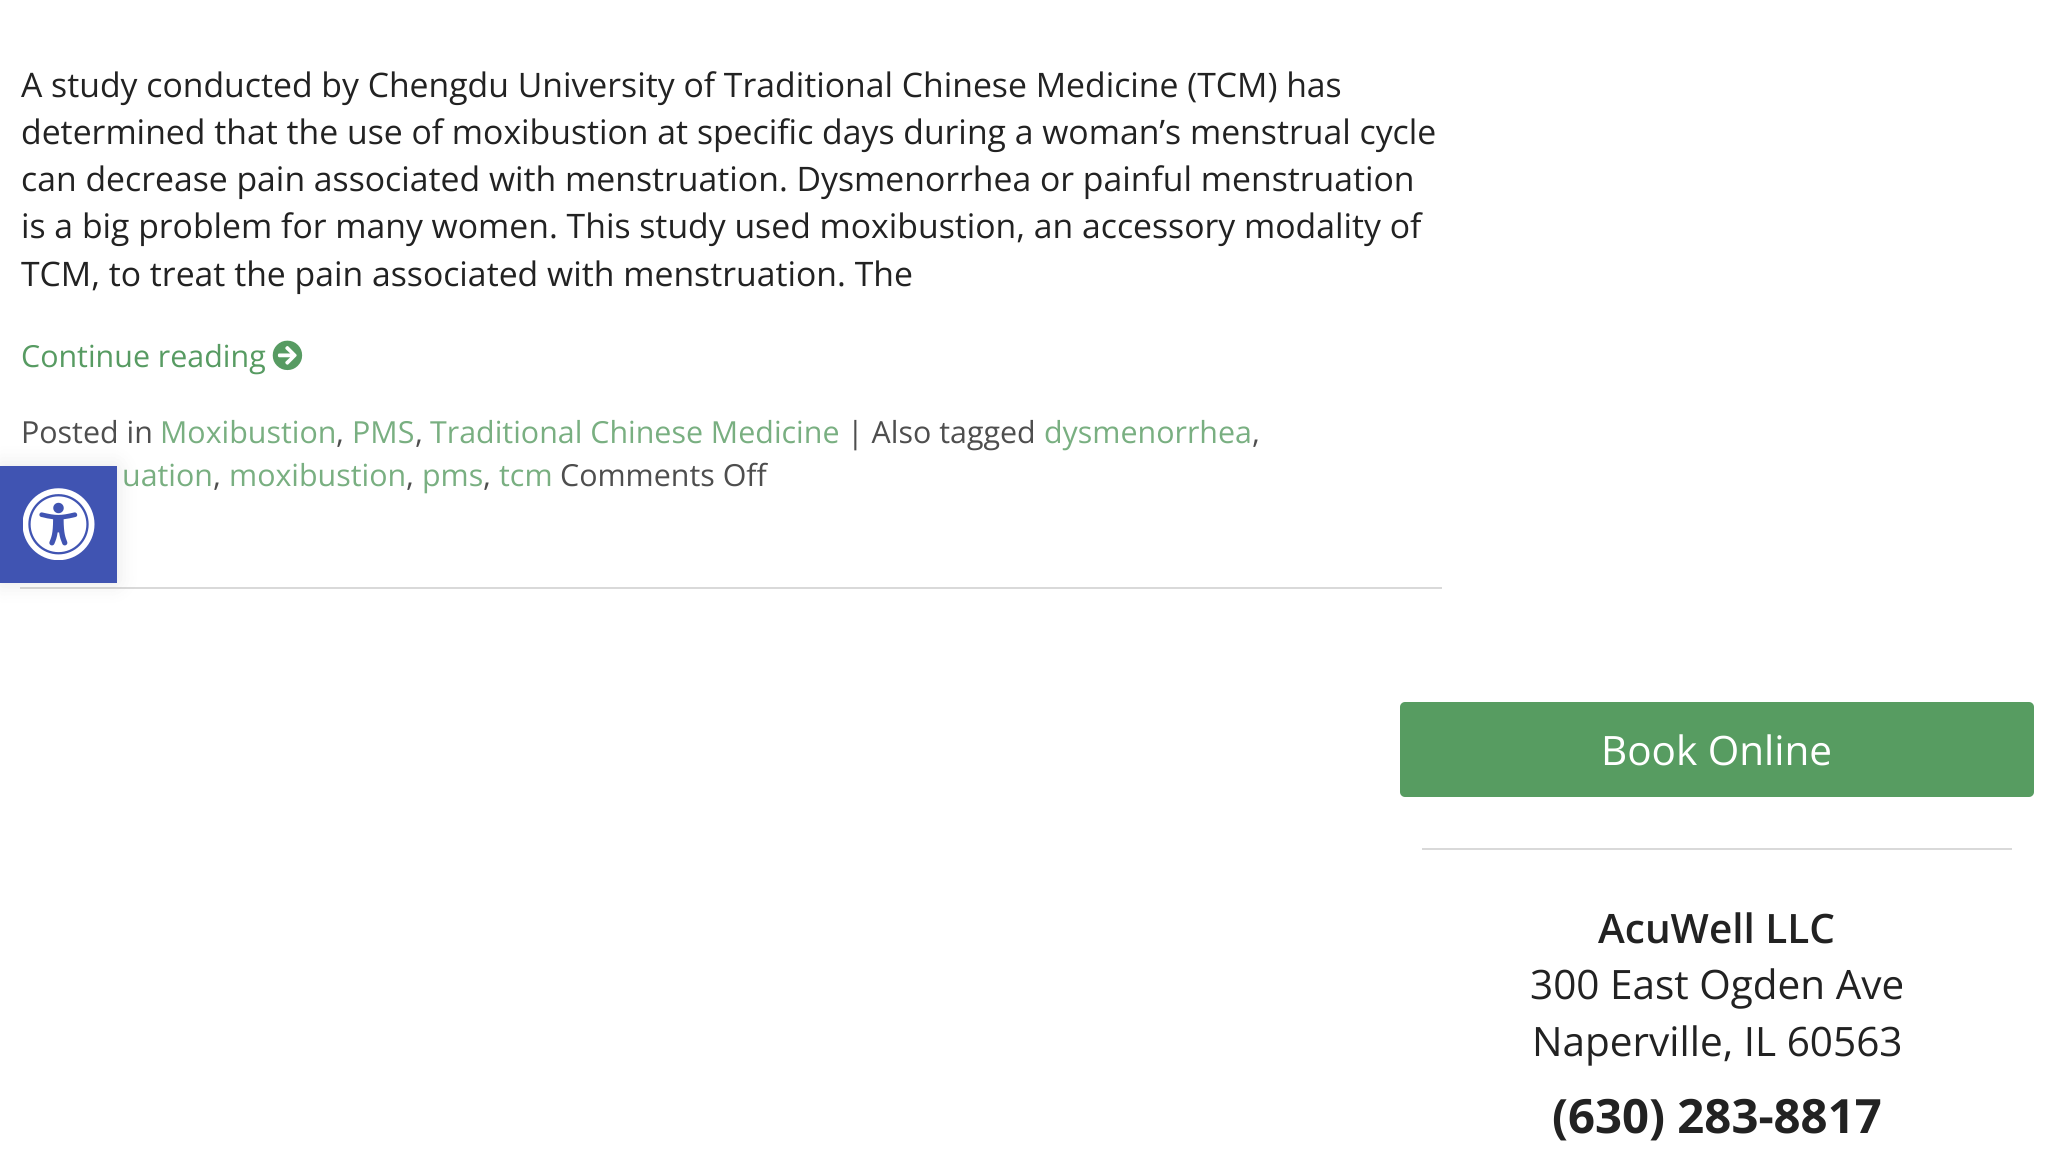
import math
import cairo

surface = cairo.ImageSurface(cairo.FORMAT_RGB24, 2065, 1164)
ctx = cairo.Context(surface)
options = cairo.FontOptions()
options.set_hint_metrics(cairo.HINT_METRICS_OFF)
options.set_hint_style(cairo.HINT_STYLE_NONE)
ctx.set_font_options(options)
ctx.set_miter_limit(4)


def round_rect(x, y, w, h, r):
    ctx.new_sub_path()
    for i, (u, v) in enumerate([(x + w - r, y + h - r), (x + r, y + h - r), (x + r, y + r), (x + w - r, y + r)]):
        ctx.arc(u, v, r, i * math.pi / 2, (i + 1) * math.pi / 2)
    ctx.close_path()


def shadow(x, y, w, h, r, blur, alpha):
    ctx.push_group_with_content(cairo.CONTENT_ALPHA)
    ctx.set_operator(cairo.OPERATOR_SOURCE)
    for i in range(15, -16, -2):
        e = blur * i / 6
        if min(w, h) + 2 * e > 0:
            ctx.set_source_rgba(0, 0, 0, alpha * math.erfc((i - 1) / 8.5) / 2)
            round_rect(x - e, y - e, w + 2 * e, h + 2 * e, max(0, min(r + e + blur * .6, min(w, h) / 2 + e)))
            ctx.fill()
    ctx.mask(ctx.pop_group())


def picture(path, x, y, w, h):
    ctx.save()
    ctx.set_source_surface(cairo.ImageSurface.create_from_png(path), x, y)
    ctx.rectangle(x, y, w, h)
    ctx.fill()
    ctx.restore()


ctx.set_source_rgb(1, 1, 1)
ctx.paint()
ctx.set_source_rgb(0.851, 0.851, 0.851)
ctx.rectangle(20, 587, 1422, 2)
ctx.fill()
ctx.select_font_face("Open Sans")
ctx.set_font_size(33.75)
ctx.set_source_rgb(0.133, 0.133, 0.133)
ctx.move_to(21, 97)
ctx.show_text("A study conducted by Chengdu University of Traditional Chinese Medicine (TCM) has")
ctx.move_to(21, 144)
ctx.show_text("determined that the use of moxibustion at specific days during a woman’s menstrual cycle")
ctx.move_to(21, 191)
ctx.show_text("can decrease pain associated with menstruation. Dysmenorrhea or painful menstruation")
ctx.move_to(21, 238)
ctx.show_text("is a big problem for many women. This study used moxibustion, an accessory modality of")
ctx.move_to(21, 286)
ctx.show_text("TCM, to treat the pain associated with menstruation. The")
ctx.set_font_size(30.4)
ctx.set_source_rgb(0.341, 0.608, 0.384)
ctx.move_to(21, 367)
ctx.show_text("Continue reading")
picture("img1.png", 272, 340, 31, 31)
ctx.set_source_rgb(0.306, 0.306, 0.306)
ctx.move_to(21, 443)
ctx.show_text("Posted in")
ctx.set_source_rgb(0.475, 0.686, 0.506)
ctx.move_to(160, 443)
ctx.show_text("Moxibustion")
ctx.set_source_rgb(0.306, 0.306, 0.306)
ctx.move_to(336, 443)
ctx.show_text(",")
ctx.set_source_rgb(0.475, 0.686, 0.506)
ctx.move_to(352, 443)
ctx.show_text("PMS")
ctx.set_source_rgb(0.306, 0.306, 0.306)
ctx.move_to(415, 443)
ctx.show_text(",")
ctx.set_source_rgb(0.475, 0.686, 0.506)
ctx.move_to(430, 443)
ctx.show_text("Traditional Chinese Medicine")
ctx.set_source_rgb(0.306, 0.306, 0.306)
ctx.move_to(847, 443)
ctx.show_text("| Also tagged")
ctx.set_source_rgb(0.475, 0.686, 0.506)
ctx.move_to(1044, 443)
ctx.show_text("dysmenorrhea")
ctx.set_source_rgb(0.306, 0.306, 0.306)
ctx.move_to(1252, 443)
ctx.show_text(",")
ctx.set_source_rgb(0.475, 0.686, 0.506)
ctx.move_to(122, 486)
ctx.show_text("uation")
ctx.set_source_rgb(0.306, 0.306, 0.306)
ctx.move_to(213, 486)
ctx.show_text(",")
ctx.set_source_rgb(0.475, 0.686, 0.506)
ctx.move_to(229, 486)
ctx.show_text("moxibustion")
ctx.set_source_rgb(0.306, 0.306, 0.306)
ctx.move_to(406, 486)
ctx.show_text(",")
ctx.set_source_rgb(0.475, 0.686, 0.506)
ctx.move_to(422, 486)
ctx.show_text("pms")
ctx.set_source_rgb(0.306, 0.306, 0.306)
ctx.move_to(483, 486)
ctx.show_text(",")
ctx.set_source_rgb(0.475, 0.686, 0.506)
ctx.move_to(499, 486)
ctx.show_text("tcm")
ctx.set_source_rgb(0.306, 0.306, 0.306)
ctx.move_to(560, 486)
ctx.show_text("Comments Off")
ctx.set_source_rgb(0.341, 0.612, 0.38)
round_rect(1400, 702, 634, 95, 5)
ctx.fill()
ctx.set_font_size(40.5)
ctx.set_source_rgb(1, 1, 1)
ctx.move_to(1601, 765)
ctx.show_text("Book Online")
ctx.set_source_rgb(0.851, 0.851, 0.851)
ctx.rectangle(1422, 848, 590, 2)
ctx.fill()
ctx.select_font_face("Open Sans SemiBold")
ctx.set_source_rgb(0.133, 0.133, 0.133)
ctx.move_to(1598, 943)
ctx.show_text("AcuWell LLC")
ctx.select_font_face("Open Sans")
ctx.move_to(1530, 999)
ctx.show_text("300 East Ogden Ave")
ctx.move_to(1532, 1056)
ctx.show_text("Naperville, IL 60563")
ctx.select_font_face("Open Sans", cairo.FONT_SLANT_NORMAL, cairo.FONT_WEIGHT_BOLD)
ctx.set_font_size(47.25)
ctx.move_to(1552, 1133)
ctx.show_text("(630) 283-8817")
ctx.set_source_rgb(0, 0, 0)
shadow(0, 466, 117, 117, 0, 11, 0.1)
ctx.set_source_rgb(0.251, 0.329, 0.698)
ctx.rectangle(0, 466, 117, 117)
ctx.fill()
picture("img2.png", 23, 488, 72, 72)
surface.write_to_png("page.png")
